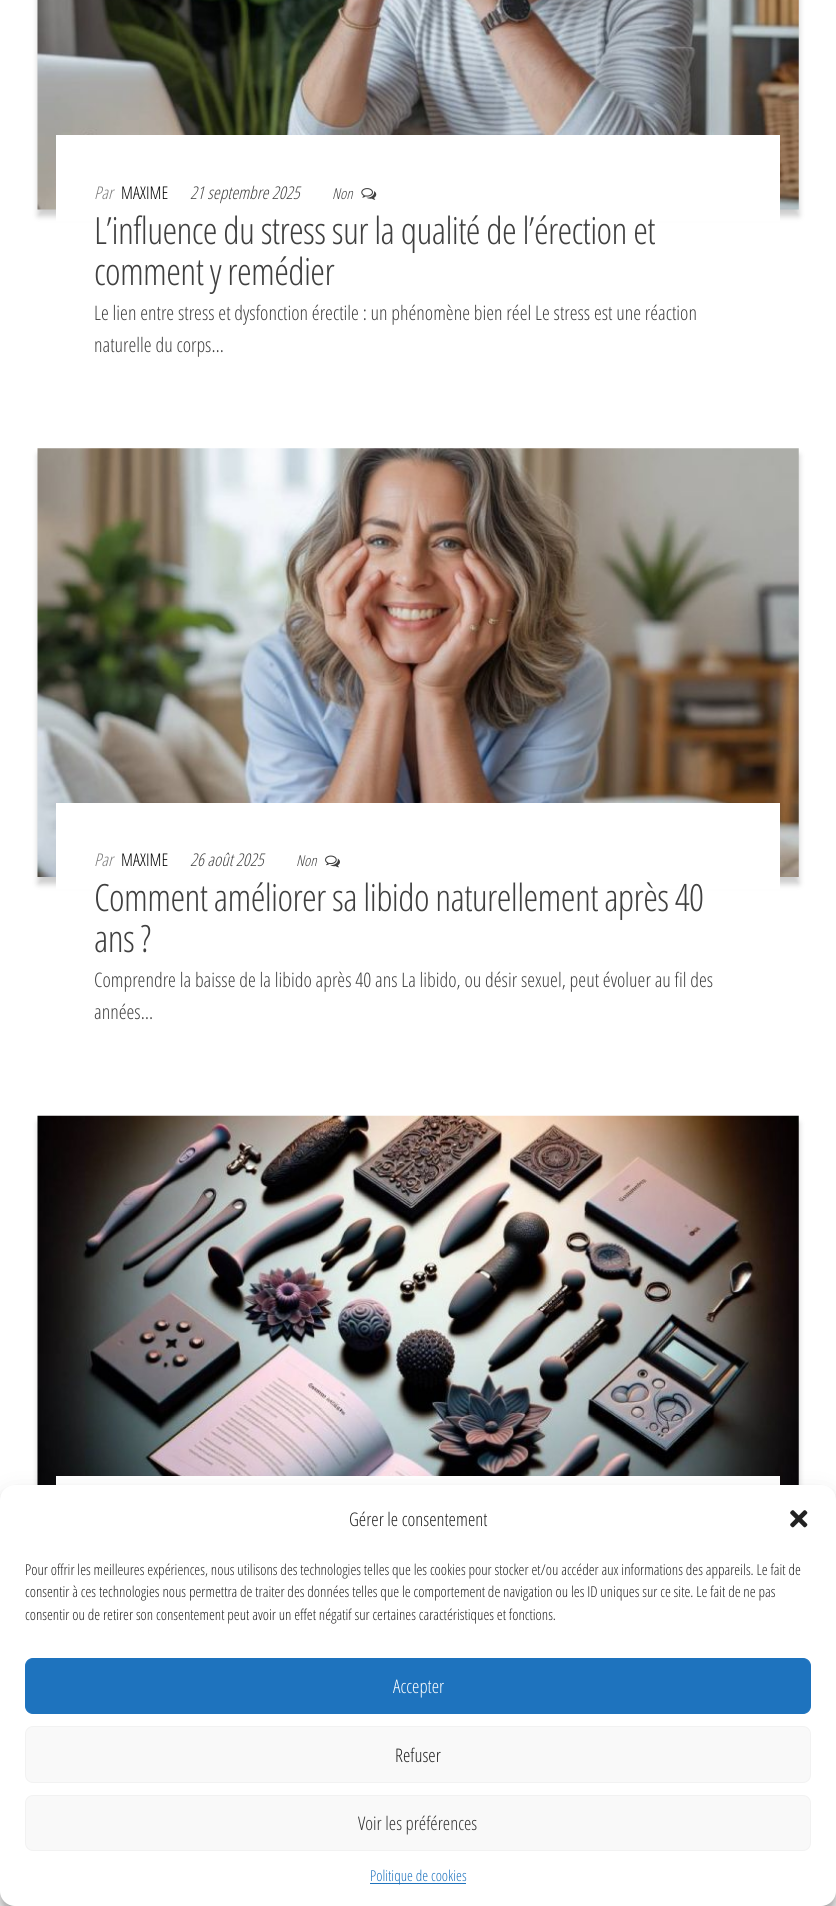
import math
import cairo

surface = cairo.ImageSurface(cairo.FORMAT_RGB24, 836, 1906)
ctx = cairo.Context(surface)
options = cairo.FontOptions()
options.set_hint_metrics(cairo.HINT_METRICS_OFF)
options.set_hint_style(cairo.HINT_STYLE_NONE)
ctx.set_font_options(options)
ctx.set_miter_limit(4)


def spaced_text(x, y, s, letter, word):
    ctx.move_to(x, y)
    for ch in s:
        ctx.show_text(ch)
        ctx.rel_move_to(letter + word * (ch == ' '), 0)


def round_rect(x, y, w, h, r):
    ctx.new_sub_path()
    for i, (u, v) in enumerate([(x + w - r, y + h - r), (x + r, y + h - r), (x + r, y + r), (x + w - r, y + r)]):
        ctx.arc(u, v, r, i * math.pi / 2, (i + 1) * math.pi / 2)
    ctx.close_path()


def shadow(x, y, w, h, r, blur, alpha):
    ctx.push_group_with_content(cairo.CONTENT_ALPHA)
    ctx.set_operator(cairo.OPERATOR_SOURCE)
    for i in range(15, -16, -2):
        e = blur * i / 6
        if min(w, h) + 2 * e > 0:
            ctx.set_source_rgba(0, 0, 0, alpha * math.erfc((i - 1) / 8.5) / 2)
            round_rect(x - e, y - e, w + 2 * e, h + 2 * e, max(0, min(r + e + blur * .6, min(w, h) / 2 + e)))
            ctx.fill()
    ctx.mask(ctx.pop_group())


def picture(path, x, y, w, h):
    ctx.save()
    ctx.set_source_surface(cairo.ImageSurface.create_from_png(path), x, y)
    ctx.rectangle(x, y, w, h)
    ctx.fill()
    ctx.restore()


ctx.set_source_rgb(1, 1, 1)
ctx.paint()
ctx.set_source_rgb(0, 0, 0)
shadow(38, -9, 761, 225, 0, 3, 0.2)
picture("img1.png", 37, 0, 762, 210)
ctx.set_source_rgb(1, 1, 1)
ctx.rectangle(56, 135, 724, 86)
ctx.fill()
ctx.select_font_face("Open Sans Condensed Light", cairo.FONT_SLANT_ITALIC)
ctx.set_font_size(17.5)
ctx.set_source_rgb(0.475, 0.475, 0.475)
ctx.move_to(94, 199)
ctx.show_text("Par")
ctx.select_font_face("Open Sans Condensed Light")
ctx.set_source_rgb(0, 0, 0)
ctx.move_to(121, 199)
ctx.show_text("MAXIME")
ctx.select_font_face("Open Sans Condensed Light", cairo.FONT_SLANT_ITALIC)
ctx.set_source_rgb(0.251, 0.251, 0.251)
ctx.move_to(190, 199)
ctx.show_text("21 septembre 2025")
ctx.set_font_size(15)
ctx.move_to(332, 199)
ctx.show_text("Non")
picture("img2.png", 361, 188, 16, 12)
ctx.select_font_face("Open Sans Condensed Light")
ctx.set_font_size(37.5)
spaced_text(94, 244, "L’influence du stress sur la qualité de l’érection et", -0.65, 0)
spaced_text(94, 285, "comment y remédier", -0.65, 0)
ctx.set_font_size(20)
ctx.move_to(94, 320)
ctx.show_text("Le lien entre stress et dysfonction érectile : un phénomène bien réel Le stress est une réaction")
ctx.move_to(94, 352)
ctx.show_text("naturelle du corps…")
ctx.set_source_rgb(0, 0, 0)
shadow(38, 455, 761, 429, 0, 3, 0.2)
picture("img3.png", 37, 448, 762, 429)
ctx.set_source_rgb(1, 1, 1)
ctx.rectangle(56, 803, 724, 86)
ctx.fill()
ctx.select_font_face("Open Sans Condensed Light", cairo.FONT_SLANT_ITALIC)
ctx.set_font_size(17.5)
ctx.set_source_rgb(0.475, 0.475, 0.475)
ctx.move_to(94, 866)
ctx.show_text("Par")
ctx.select_font_face("Open Sans Condensed Light")
ctx.set_source_rgb(0, 0, 0)
ctx.move_to(121, 866)
ctx.show_text("MAXIME")
ctx.select_font_face("Open Sans Condensed Light", cairo.FONT_SLANT_ITALIC)
ctx.set_source_rgb(0.251, 0.251, 0.251)
ctx.move_to(190, 866)
ctx.show_text("26 août 2025")
ctx.set_font_size(15)
ctx.move_to(296, 866)
ctx.show_text("Non")
picture("img4.png", 325, 855, 15, 13)
ctx.select_font_face("Open Sans Condensed Light")
ctx.set_font_size(37.5)
spaced_text(94, 911, "Comment améliorer sa libido naturellement après 40", -0.65, 0)
spaced_text(94, 952, "ans ?", -0.65, 0)
ctx.set_font_size(20)
ctx.move_to(94, 987)
ctx.show_text("Comprendre la baisse de la libido après 40 ans La libido, ou désir sexuel, peut évoluer au fil des")
ctx.move_to(94, 1019)
ctx.show_text("années…")
ctx.set_source_rgb(0, 0, 0)
shadow(38, 1123, 761, 435, 0, 3, 0.2)
picture("img5.png", 37, 1115, 762, 370)
ctx.set_source_rgb(1, 1, 1)
ctx.rectangle(56, 1476, 724, 9)
ctx.fill()
ctx.set_source_rgb(0, 0, 0)
shadow(0, 1493, 836, 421, 15, 4, 0.23)
shadow(0, 1498, 836, 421, 15, 12.5, 0.19)
ctx.set_source_rgb(1, 1, 1)
round_rect(0, 1485, 836, 421, 15)
ctx.fill()
ctx.set_font_size(18.75)
ctx.set_source_rgb(0.133, 0.133, 0.133)
ctx.move_to(349, 1526)
ctx.show_text("Gérer le consentement")
picture("img6.png", 790, 1510, 18, 18)
ctx.set_font_size(15)
ctx.move_to(25, 1575)
ctx.show_text("Pour offrir les meilleures expériences, nous utilisons des technologies telles que les cookies pour stocker et/ou accéder aux informations des appareils. Le fait de")
ctx.move_to(25, 1597)
ctx.show_text("consentir à ces technologies nous permettra de traiter des données telles que le comportement de navigation ou les ID uniques sur ce site. Le fait de ne pas")
ctx.move_to(25, 1620)
ctx.show_text("consentir ou de retirer son consentement peut avoir un effet négatif sur certaines caractéristiques et fonctions.")
ctx.set_source_rgb(0.118, 0.451, 0.745)
round_rect(25.5, 1658.5, 785, 55, 7.5)
ctx.fill_preserve()
ctx.set_line_width(1)
ctx.stroke()
ctx.set_font_size(18.75)
ctx.set_source_rgb(1, 1, 1)
ctx.move_to(393, 1693)
ctx.show_text("Accepter")
ctx.set_source_rgb(0.976, 0.976, 0.976)
round_rect(25.5, 1726.5, 785, 56, 7.5)
ctx.fill_preserve()
ctx.set_source_rgb(0.949, 0.949, 0.949)
ctx.stroke()
ctx.set_source_rgb(0.133, 0.133, 0.133)
ctx.move_to(395, 1762)
ctx.show_text("Refuser")
ctx.set_source_rgb(0.976, 0.976, 0.976)
round_rect(25.5, 1795.5, 785, 55, 7.5)
ctx.fill_preserve()
ctx.set_source_rgb(0.949, 0.949, 0.949)
ctx.stroke()
ctx.set_source_rgb(0.2, 0.2, 0.2)
ctx.move_to(358, 1830)
ctx.show_text("Voir les préférences")
ctx.set_source_rgb(0.118, 0.451, 0.745)
ctx.rectangle(370, 1883, 96, 1)
ctx.fill()
ctx.set_font_size(15)
ctx.move_to(370, 1881)
ctx.show_text("Politique de cookies")
surface.write_to_png("page.png")
